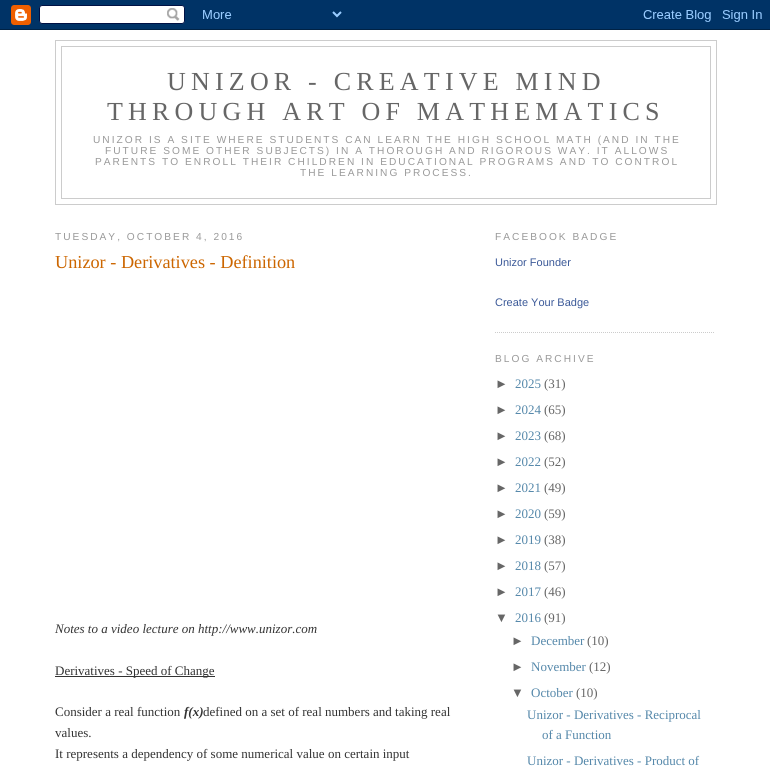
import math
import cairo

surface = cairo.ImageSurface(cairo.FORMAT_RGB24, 770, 774)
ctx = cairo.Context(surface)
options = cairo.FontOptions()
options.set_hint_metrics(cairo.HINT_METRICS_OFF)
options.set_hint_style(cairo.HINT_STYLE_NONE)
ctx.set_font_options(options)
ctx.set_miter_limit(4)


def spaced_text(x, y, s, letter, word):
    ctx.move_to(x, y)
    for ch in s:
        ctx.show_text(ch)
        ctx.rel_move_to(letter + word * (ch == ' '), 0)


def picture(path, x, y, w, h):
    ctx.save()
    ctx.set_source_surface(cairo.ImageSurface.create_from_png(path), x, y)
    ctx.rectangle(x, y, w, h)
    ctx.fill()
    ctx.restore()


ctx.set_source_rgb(1, 1, 1)
ctx.paint()
picture("img1.png", 0, 0, 770, 30)
ctx.rectangle(55.5, 40.5, 661, 164)
ctx.set_source_rgb(0.8, 0.8, 0.8)
ctx.set_line_width(1)
ctx.stroke()
ctx.rectangle(61.5, 46.5, 649, 152)
ctx.stroke()
ctx.select_font_face("Liberation Serif")
ctx.set_font_size(26)
ctx.set_source_rgb(0.4, 0.4, 0.4)
spaced_text(167, 90, "UNIZOR - CREATIVE MIND", 5.2, 0)
spaced_text(107, 120, "THROUGH ART OF MATHEMATICS", 5.2, 0)
ctx.select_font_face("Liberation Sans")
ctx.set_font_size(10.15)
ctx.set_source_rgb(0.6, 0.6, 0.6)
spaced_text(93, 143, "UNIZOR IS A SITE WHERE STUDENTS CAN LEARN THE HIGH SCHOOL MATH (AND IN THE", 2.03, 0)
spaced_text(105, 154, "FUTURE SOME OTHER SUBJECTS) IN A THOROUGH AND RIGOROUS WAY. IT ALLOWS", 2.03, 0)
spaced_text(95, 165, "PARENTS TO ENROLL THEIR CHILDREN IN EDUCATIONAL PROGRAMS AND TO CONTROL", 2.03, 0)
spaced_text(300, 176, "THE LEARNING PROCESS.", 2.03, 0)
spaced_text(55, 240, "TUESDAY, OCTOBER 4, 2016", 2.03, 0)
ctx.select_font_face("Liberation Serif")
ctx.set_font_size(18.25)
ctx.set_source_rgb(0.8, 0.4, 0)
ctx.move_to(55, 268)
ctx.show_text("Unizor - Derivatives - Definition")
ctx.select_font_face("Liberation Serif", cairo.FONT_SLANT_ITALIC)
ctx.set_font_size(13)
ctx.set_source_rgb(0.2, 0.2, 0.2)
ctx.move_to(55, 633)
ctx.show_text("Notes to a video lecture on http://www.unizor.com")
ctx.rectangle(55, 676, 160, 1)
ctx.fill()
ctx.select_font_face("Liberation Serif")
ctx.move_to(55, 675)
ctx.show_text("Derivatives - Speed of Change")
ctx.move_to(55, 716)
ctx.show_text("Consider a real function")
ctx.select_font_face("Liberation Serif", cairo.FONT_SLANT_ITALIC, cairo.FONT_WEIGHT_BOLD)
ctx.move_to(184, 716)
ctx.show_text("f(x)")
ctx.select_font_face("Liberation Serif")
ctx.move_to(203, 716)
ctx.show_text("defined on a set of real numbers and taking real")
ctx.move_to(55, 737)
ctx.show_text("values.")
ctx.move_to(55, 758)
ctx.show_text("It represents a dependency of some numerical value on certain input")
ctx.new_path()
ctx.move_to(495, 332.5)
ctx.line_to(715, 332.5)
ctx.set_source_rgb(0.8, 0.8, 0.8)
ctx.set_dash([1, 1])
ctx.stroke()
ctx.select_font_face("Liberation Sans")
ctx.set_font_size(10.15)
ctx.set_source_rgb(0.6, 0.6, 0.6)
spaced_text(495, 240, "FACEBOOK BADGE", 2.03, 0)
ctx.set_font_size(11)
ctx.set_source_rgb(0.231, 0.349, 0.596)
ctx.move_to(495, 266)
ctx.show_text("Unizor Founder")
ctx.move_to(495, 306)
ctx.show_text("Create Your Badge")
ctx.set_font_size(10.15)
ctx.set_source_rgb(0.6, 0.6, 0.6)
spaced_text(495, 362, "BLOG ARCHIVE", 2.03, 0)
ctx.set_font_size(13)
ctx.set_source_rgb(0.4, 0.4, 0.4)
ctx.move_to(495, 388)
ctx.show_text("►")
ctx.select_font_face("Liberation Serif")
ctx.set_source_rgb(0.333, 0.533, 0.667)
ctx.move_to(515, 388)
ctx.show_text("2025")
ctx.set_source_rgb(0.4, 0.4, 0.4)
ctx.move_to(544, 388)
ctx.show_text("(31)")
ctx.select_font_face("Liberation Sans")
ctx.move_to(495, 414)
ctx.show_text("►")
ctx.select_font_face("Liberation Serif")
ctx.set_source_rgb(0.333, 0.533, 0.667)
ctx.move_to(515, 414)
ctx.show_text("2024")
ctx.set_source_rgb(0.4, 0.4, 0.4)
ctx.move_to(544, 414)
ctx.show_text("(65)")
ctx.select_font_face("Liberation Sans")
ctx.move_to(495, 440)
ctx.show_text("►")
ctx.select_font_face("Liberation Serif")
ctx.set_source_rgb(0.333, 0.533, 0.667)
ctx.move_to(515, 440)
ctx.show_text("2023")
ctx.set_source_rgb(0.4, 0.4, 0.4)
ctx.move_to(544, 440)
ctx.show_text("(68)")
ctx.select_font_face("Liberation Sans")
ctx.move_to(495, 466)
ctx.show_text("►")
ctx.select_font_face("Liberation Serif")
ctx.set_source_rgb(0.333, 0.533, 0.667)
ctx.move_to(515, 466)
ctx.show_text("2022")
ctx.set_source_rgb(0.4, 0.4, 0.4)
ctx.move_to(544, 466)
ctx.show_text("(52)")
ctx.select_font_face("Liberation Sans")
ctx.move_to(495, 492)
ctx.show_text("►")
ctx.select_font_face("Liberation Serif")
ctx.set_source_rgb(0.333, 0.533, 0.667)
ctx.move_to(515, 492)
ctx.show_text("2021")
ctx.set_source_rgb(0.4, 0.4, 0.4)
ctx.move_to(544, 492)
ctx.show_text("(49)")
ctx.select_font_face("Liberation Sans")
ctx.move_to(495, 518)
ctx.show_text("►")
ctx.select_font_face("Liberation Serif")
ctx.set_source_rgb(0.333, 0.533, 0.667)
ctx.move_to(515, 518)
ctx.show_text("2020")
ctx.set_source_rgb(0.4, 0.4, 0.4)
ctx.move_to(544, 518)
ctx.show_text("(59)")
ctx.select_font_face("Liberation Sans")
ctx.move_to(495, 544)
ctx.show_text("►")
ctx.select_font_face("Liberation Serif")
ctx.set_source_rgb(0.333, 0.533, 0.667)
ctx.move_to(515, 544)
ctx.show_text("2019")
ctx.set_source_rgb(0.4, 0.4, 0.4)
ctx.move_to(544, 544)
ctx.show_text("(38)")
ctx.select_font_face("Liberation Sans")
ctx.move_to(495, 570)
ctx.show_text("►")
ctx.select_font_face("Liberation Serif")
ctx.set_source_rgb(0.333, 0.533, 0.667)
ctx.move_to(515, 570)
ctx.show_text("2018")
ctx.set_source_rgb(0.4, 0.4, 0.4)
ctx.move_to(544, 570)
ctx.show_text("(57)")
ctx.select_font_face("Liberation Sans")
ctx.move_to(495, 596)
ctx.show_text("►")
ctx.select_font_face("Liberation Serif")
ctx.set_source_rgb(0.333, 0.533, 0.667)
ctx.move_to(515, 596)
ctx.show_text("2017")
ctx.set_source_rgb(0.4, 0.4, 0.4)
ctx.move_to(544, 596)
ctx.show_text("(46)")
ctx.select_font_face("Liberation Sans")
ctx.move_to(495, 622)
ctx.show_text("▼")
ctx.select_font_face("Liberation Serif")
ctx.set_source_rgb(0.333, 0.533, 0.667)
ctx.move_to(515, 622)
ctx.show_text("2016")
ctx.set_source_rgb(0.4, 0.4, 0.4)
ctx.move_to(544, 622)
ctx.show_text("(91)")
ctx.select_font_face("Liberation Sans")
ctx.move_to(511, 645)
ctx.show_text("►")
ctx.select_font_face("Liberation Serif")
ctx.set_source_rgb(0.333, 0.533, 0.667)
ctx.move_to(531, 645)
ctx.show_text("December")
ctx.set_source_rgb(0.4, 0.4, 0.4)
ctx.move_to(587, 645)
ctx.show_text("(10)")
ctx.select_font_face("Liberation Sans")
ctx.move_to(511, 671)
ctx.show_text("►")
ctx.select_font_face("Liberation Serif")
ctx.set_source_rgb(0.333, 0.533, 0.667)
ctx.move_to(531, 671)
ctx.show_text("November")
ctx.set_source_rgb(0.4, 0.4, 0.4)
ctx.move_to(589, 671)
ctx.show_text("(12)")
ctx.select_font_face("Liberation Sans")
ctx.move_to(511, 697)
ctx.show_text("▼")
ctx.select_font_face("Liberation Serif")
ctx.set_source_rgb(0.333, 0.533, 0.667)
ctx.move_to(531, 697)
ctx.show_text("October")
ctx.set_source_rgb(0.4, 0.4, 0.4)
ctx.move_to(576, 697)
ctx.show_text("(10)")
ctx.set_source_rgb(0.333, 0.533, 0.667)
ctx.move_to(527, 719)
ctx.show_text("Unizor - Derivatives - Reciprocal")
ctx.move_to(542, 739)
ctx.show_text("of a Function")
ctx.move_to(527, 765)
ctx.show_text("Unizor - Derivatives - Product of")
surface.write_to_png("page.png")
